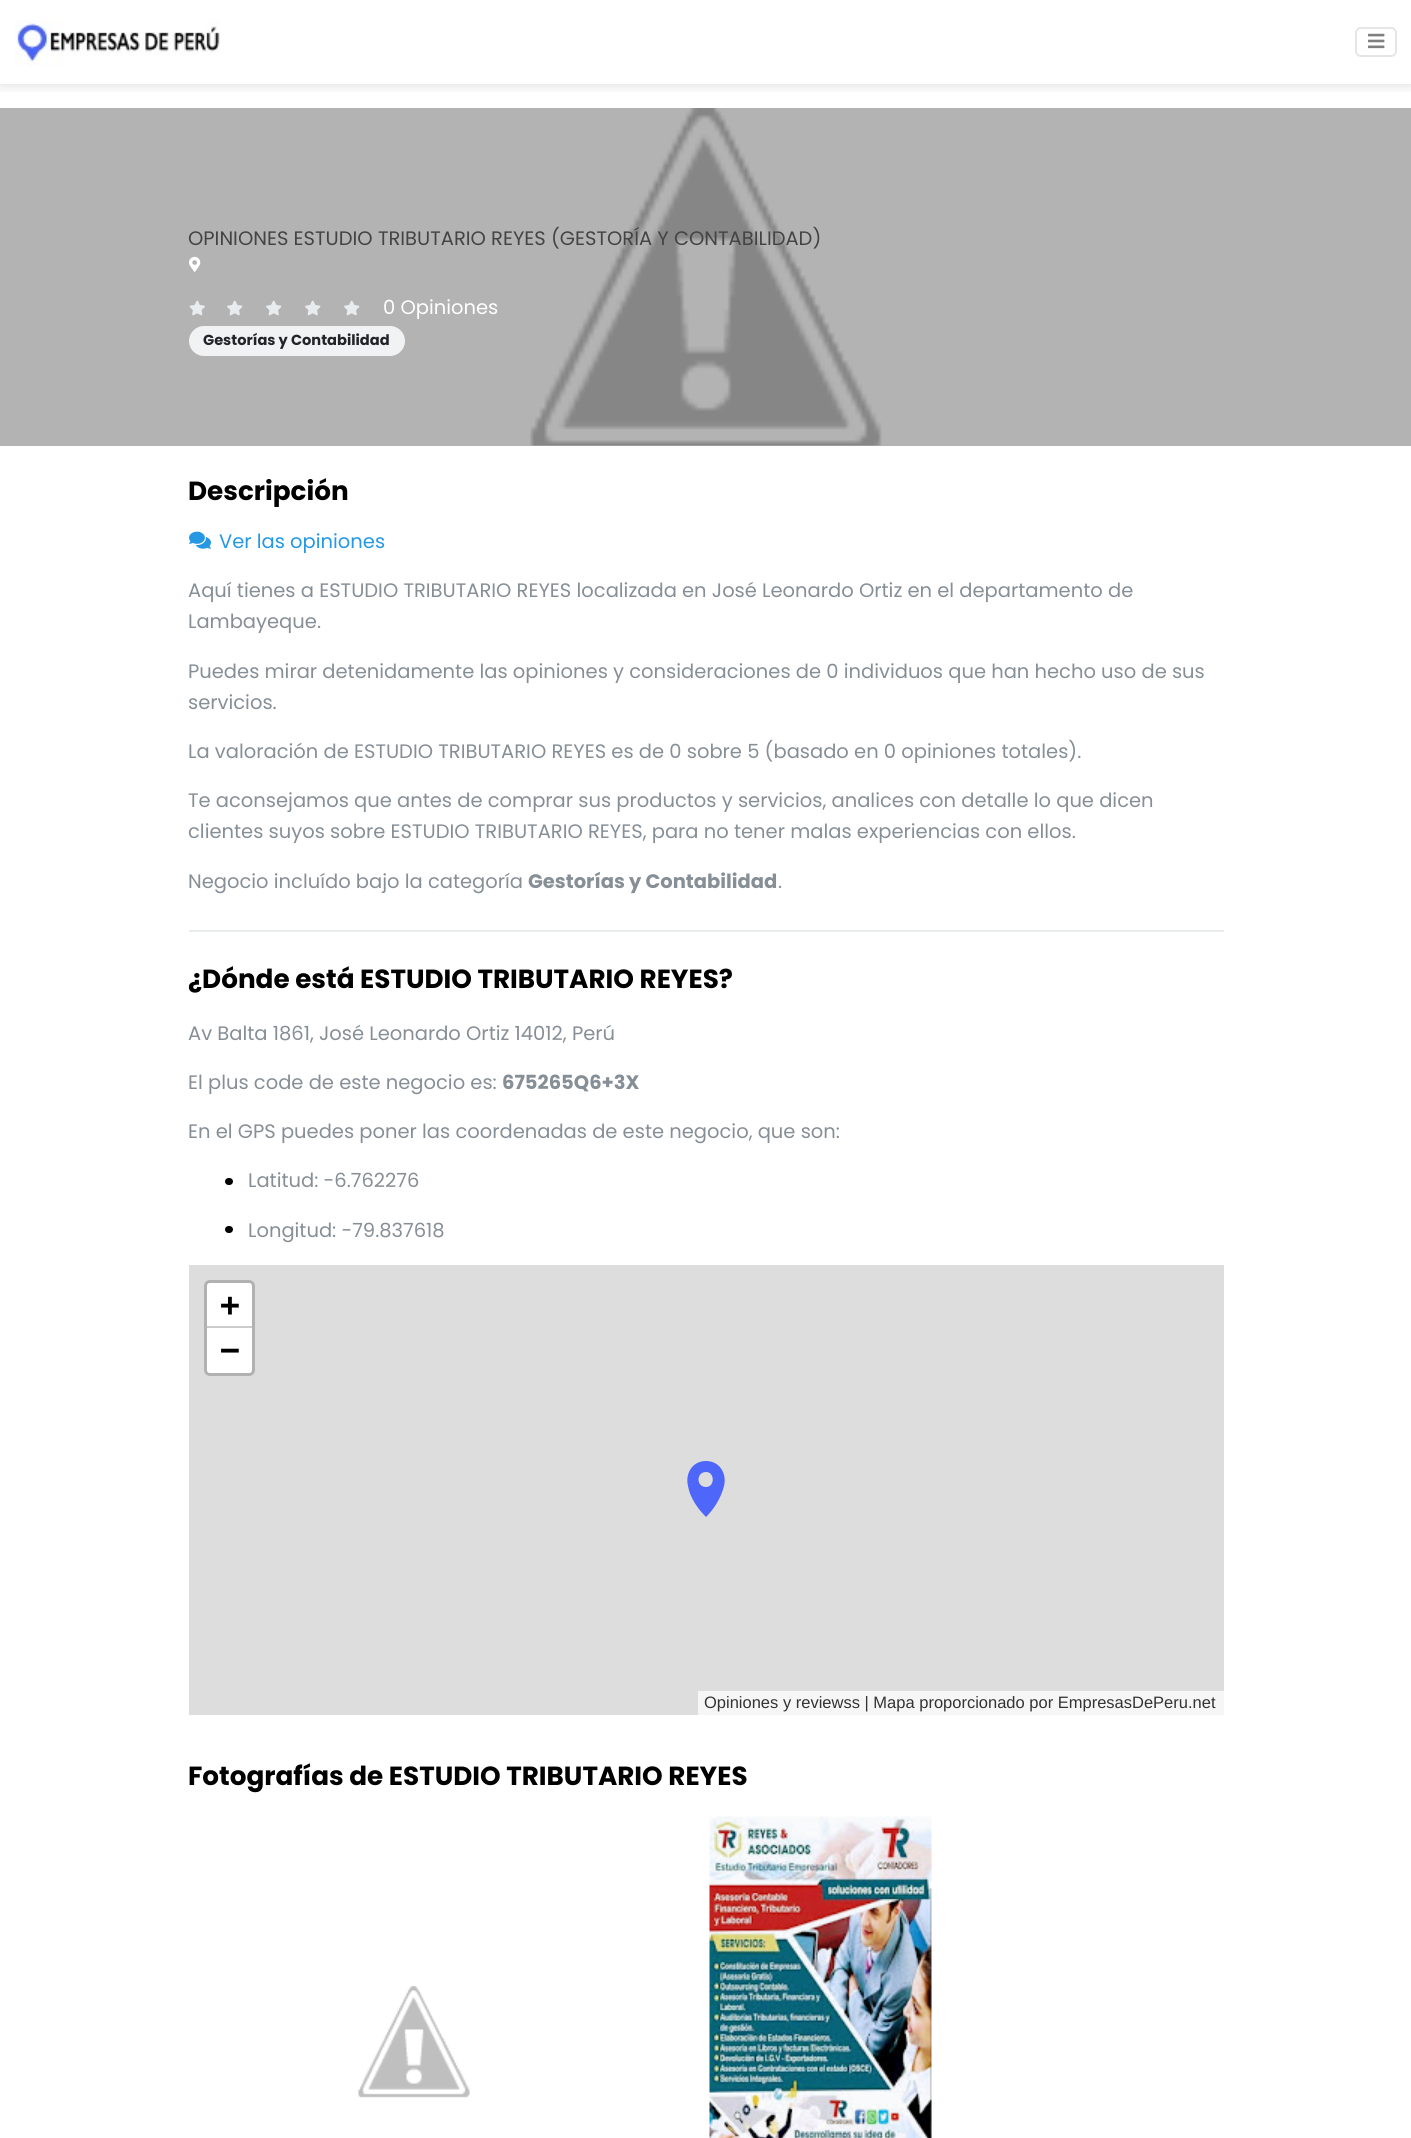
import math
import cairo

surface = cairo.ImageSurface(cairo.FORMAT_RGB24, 1411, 2138)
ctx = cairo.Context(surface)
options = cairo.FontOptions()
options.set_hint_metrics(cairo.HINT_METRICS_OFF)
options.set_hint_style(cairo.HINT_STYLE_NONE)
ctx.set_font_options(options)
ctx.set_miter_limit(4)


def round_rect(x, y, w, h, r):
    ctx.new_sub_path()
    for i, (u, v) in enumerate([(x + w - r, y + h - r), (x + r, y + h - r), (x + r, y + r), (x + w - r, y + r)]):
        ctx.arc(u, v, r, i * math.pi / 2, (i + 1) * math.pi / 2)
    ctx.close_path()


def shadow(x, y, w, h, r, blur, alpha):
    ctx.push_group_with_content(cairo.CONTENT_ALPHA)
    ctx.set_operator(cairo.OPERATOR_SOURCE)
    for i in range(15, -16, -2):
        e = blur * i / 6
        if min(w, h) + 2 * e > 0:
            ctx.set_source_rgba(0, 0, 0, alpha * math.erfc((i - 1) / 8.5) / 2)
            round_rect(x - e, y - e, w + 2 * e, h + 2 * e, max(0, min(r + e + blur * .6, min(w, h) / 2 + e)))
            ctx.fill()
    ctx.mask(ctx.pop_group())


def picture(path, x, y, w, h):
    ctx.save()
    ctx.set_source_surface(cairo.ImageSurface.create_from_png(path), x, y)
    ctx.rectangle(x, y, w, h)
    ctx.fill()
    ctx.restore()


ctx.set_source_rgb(1, 1, 1)
ctx.paint()
ctx.set_source_rgb(0.702, 0.702, 0.702)
ctx.rectangle(0, 108, 1411, 338)
ctx.fill()
ctx.save()
ctx.rectangle(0, 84, 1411, 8)
ctx.clip()
ctx.set_source_rgb(0, 0, 0)
shadow(0, 0, 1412, 84, 0, 7.5, 0.15)
ctx.restore()
picture("img1.png", 15, 20, 205, 46)
round_rect(1356, 28, 40, 28, 5)
ctx.set_source_rgb(0.902, 0.902, 0.902)
ctx.stroke()
picture("img2.png", 1368, 33, 17, 16)
picture("img3.png", 530, 108, 352, 338)
ctx.select_font_face("Poppins")
ctx.set_font_size(19.5)
ctx.set_source_rgb(0.267, 0.267, 0.267)
ctx.move_to(188, 245)
ctx.show_text("OPINIONES ESTUDIO TRIBUTARIO REYES (GESTORÍA Y CONTABILIDAD)")
picture("img4.png", 189, 256, 12, 16)
picture("img5.png", 189, 300, 16, 16)
picture("img6.png", 227, 300, 16, 16)
picture("img6.png", 266, 300, 16, 16)
picture("img6.png", 305, 300, 16, 16)
picture("img6.png", 344, 300, 16, 16)
ctx.set_source_rgb(1, 1, 1)
ctx.move_to(383, 314)
ctx.show_text("0 Opiniones")
ctx.set_source_rgb(0.945, 0.949, 0.953)
round_rect(189, 326, 216, 30, 15)
ctx.fill()
ctx.select_font_face("Poppins", cairo.FONT_SLANT_NORMAL, cairo.FONT_WEIGHT_BOLD)
ctx.set_font_size(14.6)
ctx.set_source_rgb(0.129, 0.145, 0.161)
ctx.move_to(203, 345)
ctx.show_text("Gestorías y Contabilidad")
ctx.set_source_rgb(0.914, 0.925, 0.937)
ctx.rectangle(189, 930, 1035, 2)
ctx.fill()
ctx.set_font_size(26.25)
ctx.set_source_rgb(0, 0, 0)
ctx.move_to(188, 500)
ctx.show_text("Descripción")
picture("img7.png", 189, 531, 22, 18)
ctx.select_font_face("Poppins")
ctx.set_font_size(19.5)
ctx.set_source_rgb(0.141, 0.596, 0.89)
ctx.move_to(219, 548)
ctx.show_text("Ver las opiniones")
ctx.set_source_rgb(0.525, 0.557, 0.588)
ctx.move_to(188, 597)
ctx.show_text("Aquí tienes a ESTUDIO TRIBUTARIO REYES localizada en José Leonardo Ortiz en el departamento de")
ctx.move_to(188, 628)
ctx.show_text("Lambayeque.")
ctx.move_to(188, 678)
ctx.show_text("Puedes mirar detenidamente las opiniones y consideraciones de 0 individuos que han hecho uso de sus")
ctx.move_to(188, 709)
ctx.show_text("servicios.")
ctx.move_to(188, 758)
ctx.show_text("La valoración de ESTUDIO TRIBUTARIO REYES es de 0 sobre 5 (basado en 0 opiniones totales).")
ctx.move_to(188, 807)
ctx.show_text("Te aconsejamos que antes de comprar sus productos y servicios, analices con detalle lo que dicen")
ctx.move_to(188, 838)
ctx.show_text("clientes suyos sobre ESTUDIO TRIBUTARIO REYES, para no tener malas experiencias con ellos.")
ctx.move_to(188, 888)
ctx.show_text("Negocio incluído bajo la categoría")
ctx.select_font_face("Poppins", cairo.FONT_SLANT_NORMAL, cairo.FONT_WEIGHT_BOLD)
ctx.move_to(528, 888)
ctx.show_text("Gestorías y Contabilidad")
ctx.select_font_face("Poppins")
ctx.move_to(778, 888)
ctx.show_text(".")
ctx.select_font_face("Poppins", cairo.FONT_SLANT_NORMAL, cairo.FONT_WEIGHT_BOLD)
ctx.set_font_size(26.25)
ctx.set_source_rgb(0, 0, 0)
ctx.move_to(188, 988)
ctx.show_text("¿Dónde está ESTUDIO TRIBUTARIO REYES?")
ctx.select_font_face("Poppins")
ctx.set_font_size(19.5)
ctx.set_source_rgb(0.525, 0.557, 0.588)
ctx.move_to(188, 1040)
ctx.show_text("Av Balta 1861, José Leonardo Ortiz 14012, Perú")
ctx.move_to(188, 1089)
ctx.show_text("El plus code de este negocio es:")
ctx.select_font_face("Poppins", cairo.FONT_SLANT_NORMAL, cairo.FONT_WEIGHT_BOLD)
ctx.move_to(502, 1089)
ctx.show_text("675265Q6+3X")
ctx.select_font_face("Poppins")
ctx.move_to(188, 1138)
ctx.show_text("En el GPS puedes poner las coordenadas de este negocio, que son:")
ctx.set_source_rgb(0, 0, 0)
round_rect(225, 1178, 8, 7, 3.5)
ctx.fill()
ctx.set_source_rgb(0.525, 0.557, 0.588)
ctx.move_to(248, 1187)
ctx.show_text("Latitud: -6.762276")
ctx.set_source_rgb(0, 0, 0)
round_rect(225, 1226, 8, 7, 3.5)
ctx.fill()
ctx.set_source_rgb(0.525, 0.557, 0.588)
ctx.move_to(248, 1237)
ctx.show_text("Longitud: -79.837618")
ctx.set_source_rgb(0.867, 0.867, 0.867)
ctx.rectangle(189, 1265, 1035, 450)
ctx.fill()
round_rect(205.5, 1281.5, 48, 93, 4.5)
ctx.set_source_rgb(0.694, 0.694, 0.694)
ctx.set_line_width(3)
ctx.stroke()
ctx.set_source_rgb(1, 1, 1)
ctx.new_path()
ctx.move_to(210, 1283)
ctx.line_to(249, 1283)
ctx.curve_to(250.5, 1283, 252, 1284.5, 252, 1286)
ctx.line_to(252, 1328)
ctx.line_to(207, 1328)
ctx.line_to(207, 1286)
ctx.curve_to(207, 1284.5, 208.5, 1283, 210, 1283)
ctx.close_path()
ctx.fill()
ctx.set_source_rgb(0.8, 0.8, 0.8)
ctx.rectangle(207, 1326, 45, 2)
ctx.fill()
ctx.select_font_face("DejaVu Sans Mono", cairo.FONT_SLANT_NORMAL, cairo.FONT_WEIGHT_BOLD)
ctx.set_font_size(33)
ctx.set_source_rgb(0, 0, 0)
ctx.move_to(220, 1316)
ctx.show_text("+")
ctx.set_source_rgb(1, 1, 1)
ctx.new_path()
ctx.move_to(207, 1328)
ctx.line_to(252, 1328)
ctx.line_to(252, 1370)
ctx.curve_to(252, 1371.5, 250.5, 1373, 249, 1373)
ctx.line_to(210, 1373)
ctx.curve_to(208.5, 1373, 207, 1371.5, 207, 1370)
ctx.close_path()
ctx.fill()
ctx.set_source_rgb(0, 0, 0)
ctx.move_to(220, 1361)
ctx.show_text("−")
ctx.set_source_rgb(0.961, 0.961, 0.961)
ctx.rectangle(698, 1691, 526, 24)
ctx.fill()
ctx.select_font_face("Liberation Sans")
ctx.set_font_size(16.5)
ctx.set_source_rgb(0.2, 0.2, 0.2)
ctx.move_to(704, 1708)
ctx.show_text("Opiniones y reviewss | Mapa proporcionado por EmpresasDePeru.net")
ctx.set_source_rgb(0.306, 0.4, 0.973)
ctx.new_path()
ctx.move_to(706, 1461)
ctx.curve_to(692, 1461, 685, 1474, 688, 1486)
ctx.curve_to(690, 1498, 698, 1509, 706, 1517)
ctx.curve_to(714, 1509, 721, 1498, 724, 1486)
ctx.curve_to(727, 1474, 720, 1461, 706, 1461)
ctx.close_path()
ctx.move_to(706, 1487)
ctx.curve_to(696, 1487, 696, 1472, 706, 1472)
ctx.curve_to(715, 1472, 715, 1487, 706, 1487)
ctx.close_path()
ctx.fill()
ctx.select_font_face("Poppins", cairo.FONT_SLANT_NORMAL, cairo.FONT_WEIGHT_BOLD)
ctx.set_font_size(26.25)
ctx.set_source_rgb(0, 0, 0)
ctx.move_to(188, 1785)
ctx.show_text("Fotografías de ESTUDIO TRIBUTARIO REYES")
picture("img8.png", 358, 1985, 112, 113)
picture("img9.png", 709, 1816, 223, 322)
surface.write_to_png("page.png")
